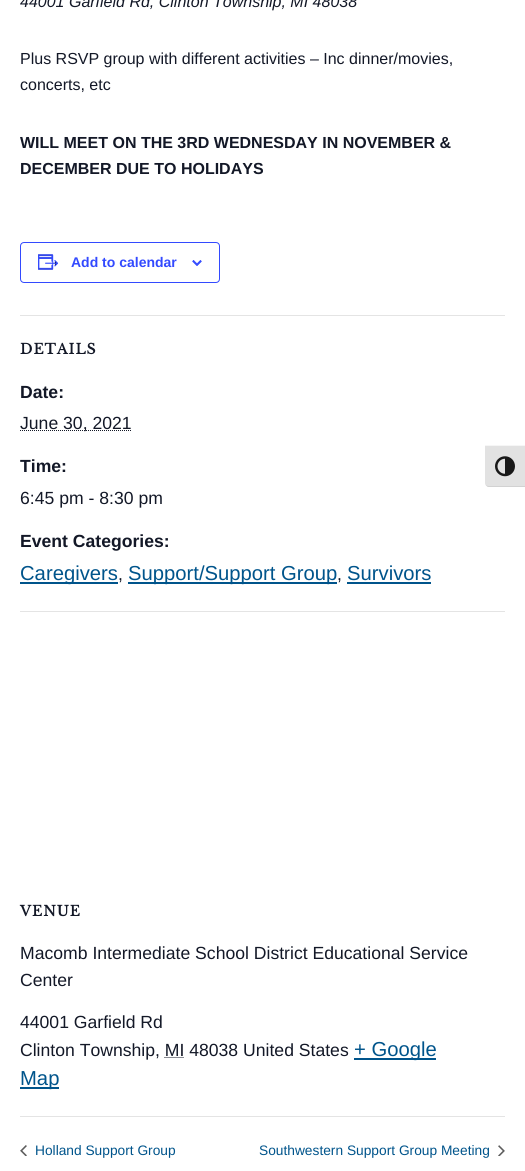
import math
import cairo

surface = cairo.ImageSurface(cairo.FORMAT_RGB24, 525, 1171)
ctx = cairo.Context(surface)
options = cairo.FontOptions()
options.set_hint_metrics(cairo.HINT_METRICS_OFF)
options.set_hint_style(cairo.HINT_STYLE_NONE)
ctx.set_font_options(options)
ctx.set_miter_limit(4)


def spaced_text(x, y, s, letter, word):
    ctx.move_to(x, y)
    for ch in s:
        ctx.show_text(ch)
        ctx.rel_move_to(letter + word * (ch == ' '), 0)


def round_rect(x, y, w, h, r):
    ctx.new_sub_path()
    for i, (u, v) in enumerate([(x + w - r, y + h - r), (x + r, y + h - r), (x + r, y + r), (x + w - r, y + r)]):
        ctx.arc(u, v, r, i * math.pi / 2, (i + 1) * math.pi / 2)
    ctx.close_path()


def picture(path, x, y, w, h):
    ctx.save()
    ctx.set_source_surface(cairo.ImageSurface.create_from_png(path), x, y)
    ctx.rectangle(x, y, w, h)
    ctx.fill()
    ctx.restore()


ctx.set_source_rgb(1, 1, 1)
ctx.paint()
ctx.select_font_face("Liberation Sans", cairo.FONT_SLANT_ITALIC)
ctx.set_font_size(16)
ctx.set_source_rgb(0.078, 0.094, 0.153)
ctx.move_to(20, 7)
ctx.show_text("44001 Garfield Rd, Clinton Township, MI 48038")
ctx.select_font_face("Liberation Sans")
ctx.move_to(20, 64)
ctx.show_text("Plus RSVP group with different activities – Inc dinner/movies,")
ctx.move_to(20, 90)
ctx.show_text("concerts, etc")
ctx.select_font_face("Liberation Sans", cairo.FONT_SLANT_NORMAL, cairo.FONT_WEIGHT_BOLD)
ctx.move_to(20, 148)
ctx.show_text("WILL MEET ON THE 3RD WEDNESDAY IN NOVEMBER &")
ctx.move_to(20, 174)
ctx.show_text("DECEMBER DUE TO HOLIDAYS")
round_rect(20.5, 242.5, 199, 40, 3.5)
ctx.set_source_rgb(0.2, 0.29, 1)
ctx.set_line_width(1)
ctx.stroke()
picture("img1.png", 38, 254, 21, 16)
ctx.set_font_size(14)
ctx.move_to(71, 267)
ctx.show_text("Add to calendar")
picture("img2.png", 192, 260, 10, 6)
ctx.set_source_rgb(0.894, 0.894, 0.894)
ctx.rectangle(20, 315, 485, 1)
ctx.fill()
ctx.select_font_face("Libre Baskerville", cairo.FONT_SLANT_NORMAL, cairo.FONT_WEIGHT_BOLD)
ctx.set_source_rgb(0.078, 0.094, 0.153)
spaced_text(20, 354, "DETAILS", 1, 0)
ctx.select_font_face("Liberation Sans", cairo.FONT_SLANT_NORMAL, cairo.FONT_WEIGHT_BOLD)
ctx.set_font_size(17.6)
ctx.move_to(20, 398)
ctx.show_text("Date:")
ctx.new_path()
ctx.move_to(20, 430.5)
ctx.line_to(131.5, 430.5)
ctx.set_dash([1, 1])
ctx.stroke()
ctx.select_font_face("Liberation Sans")
ctx.move_to(20, 429)
ctx.show_text("June 30, 2021")
ctx.select_font_face("Liberation Sans", cairo.FONT_SLANT_NORMAL, cairo.FONT_WEIGHT_BOLD)
ctx.move_to(20, 472)
ctx.show_text("Time:")
ctx.select_font_face("Liberation Sans")
ctx.move_to(20, 504)
ctx.show_text("6:45 pm - 8:30 pm")
ctx.select_font_face("Liberation Sans", cairo.FONT_SLANT_NORMAL, cairo.FONT_WEIGHT_BOLD)
ctx.move_to(20, 547)
ctx.show_text("Event Categories:")
ctx.set_source_rgb(0, 0.329, 0.545)
ctx.rectangle(20, 582, 98, 2)
ctx.fill()
ctx.select_font_face("Liberation Sans")
ctx.set_font_size(20.25)
ctx.move_to(20, 580)
ctx.show_text("Caregivers")
ctx.set_font_size(17.6)
ctx.set_source_rgb(0.078, 0.094, 0.153)
ctx.move_to(118, 580)
ctx.show_text(",")
ctx.set_source_rgb(0, 0.329, 0.545)
ctx.rectangle(128, 582, 209, 2)
ctx.fill()
ctx.set_font_size(20.25)
ctx.move_to(128, 580)
ctx.show_text("Support/Support Group")
ctx.set_font_size(17.6)
ctx.set_source_rgb(0.078, 0.094, 0.153)
ctx.move_to(337, 580)
ctx.show_text(",")
ctx.set_font_size(20.25)
ctx.set_source_rgb(0, 0.329, 0.545)
ctx.move_to(347, 580)
ctx.show_text("Survivors")
ctx.rectangle(347, 582, 84, 2)
ctx.fill()
ctx.set_source_rgb(0.894, 0.894, 0.894)
ctx.rectangle(20, 611, 485, 1)
ctx.fill()
ctx.select_font_face("Libre Baskerville", cairo.FONT_SLANT_NORMAL, cairo.FONT_WEIGHT_BOLD)
ctx.set_font_size(14)
ctx.set_source_rgb(0.078, 0.094, 0.153)
spaced_text(20, 916, "VENUE", 1, 0)
ctx.select_font_face("Liberation Sans")
ctx.set_font_size(17.6)
ctx.move_to(20, 959)
ctx.show_text("Macomb Intermediate School District Educational Service")
ctx.move_to(20, 986)
ctx.show_text("Center")
ctx.move_to(20, 1028)
ctx.show_text("44001 Garfield Rd")
ctx.move_to(20, 1056)
ctx.show_text("Clinton Township, MI 48038 United States")
ctx.new_path()
ctx.move_to(164.5, 1057.5)
ctx.line_to(184.5, 1057.5)
ctx.stroke()
ctx.set_source_rgb(0, 0.329, 0.545)
ctx.rectangle(354, 1058, 82, 2)
ctx.fill()
ctx.set_font_size(20.25)
ctx.move_to(354, 1056)
ctx.show_text("+ Google")
ctx.rectangle(20, 1087, 39, 2)
ctx.fill()
ctx.move_to(20, 1085)
ctx.show_text("Map")
ctx.set_source_rgb(0.894, 0.894, 0.894)
ctx.rectangle(20, 1116, 485, 1)
ctx.fill()
picture("img3.png", 20, 1145, 7, 11)
ctx.set_font_size(13.75)
ctx.set_source_rgb(0, 0.329, 0.545)
ctx.move_to(35, 1155)
ctx.show_text("Holland Support Group")
ctx.move_to(259, 1155)
ctx.show_text("Southwestern Support Group Meeting")
picture("img4.png", 498, 1145, 7, 11)
ctx.set_source_rgb(0.886, 0.886, 0.886)
ctx.new_path()
ctx.move_to(485, 445)
ctx.line_to(525, 445)
ctx.line_to(525, 487)
ctx.line_to(489, 487)
ctx.curve_to(487, 487, 485, 485, 485, 483)
ctx.close_path()
ctx.fill()
ctx.set_source_rgb(0.961, 0.961, 0.961)
ctx.rectangle(485, 445, 40, 1)
ctx.fill()
ctx.set_source_rgb(0.824, 0.824, 0.824)
ctx.new_path()
ctx.move_to(525, 487)
ctx.line_to(525, 486)
ctx.line_to(489, 486)
ctx.curve_to(487, 486, 485, 485, 485, 483)
ctx.curve_to(485, 485, 487, 487, 489, 487)
ctx.close_path()
ctx.fill()
picture("img5.png", 495, 456, 20, 21)
surface.write_to_png("page.png")
